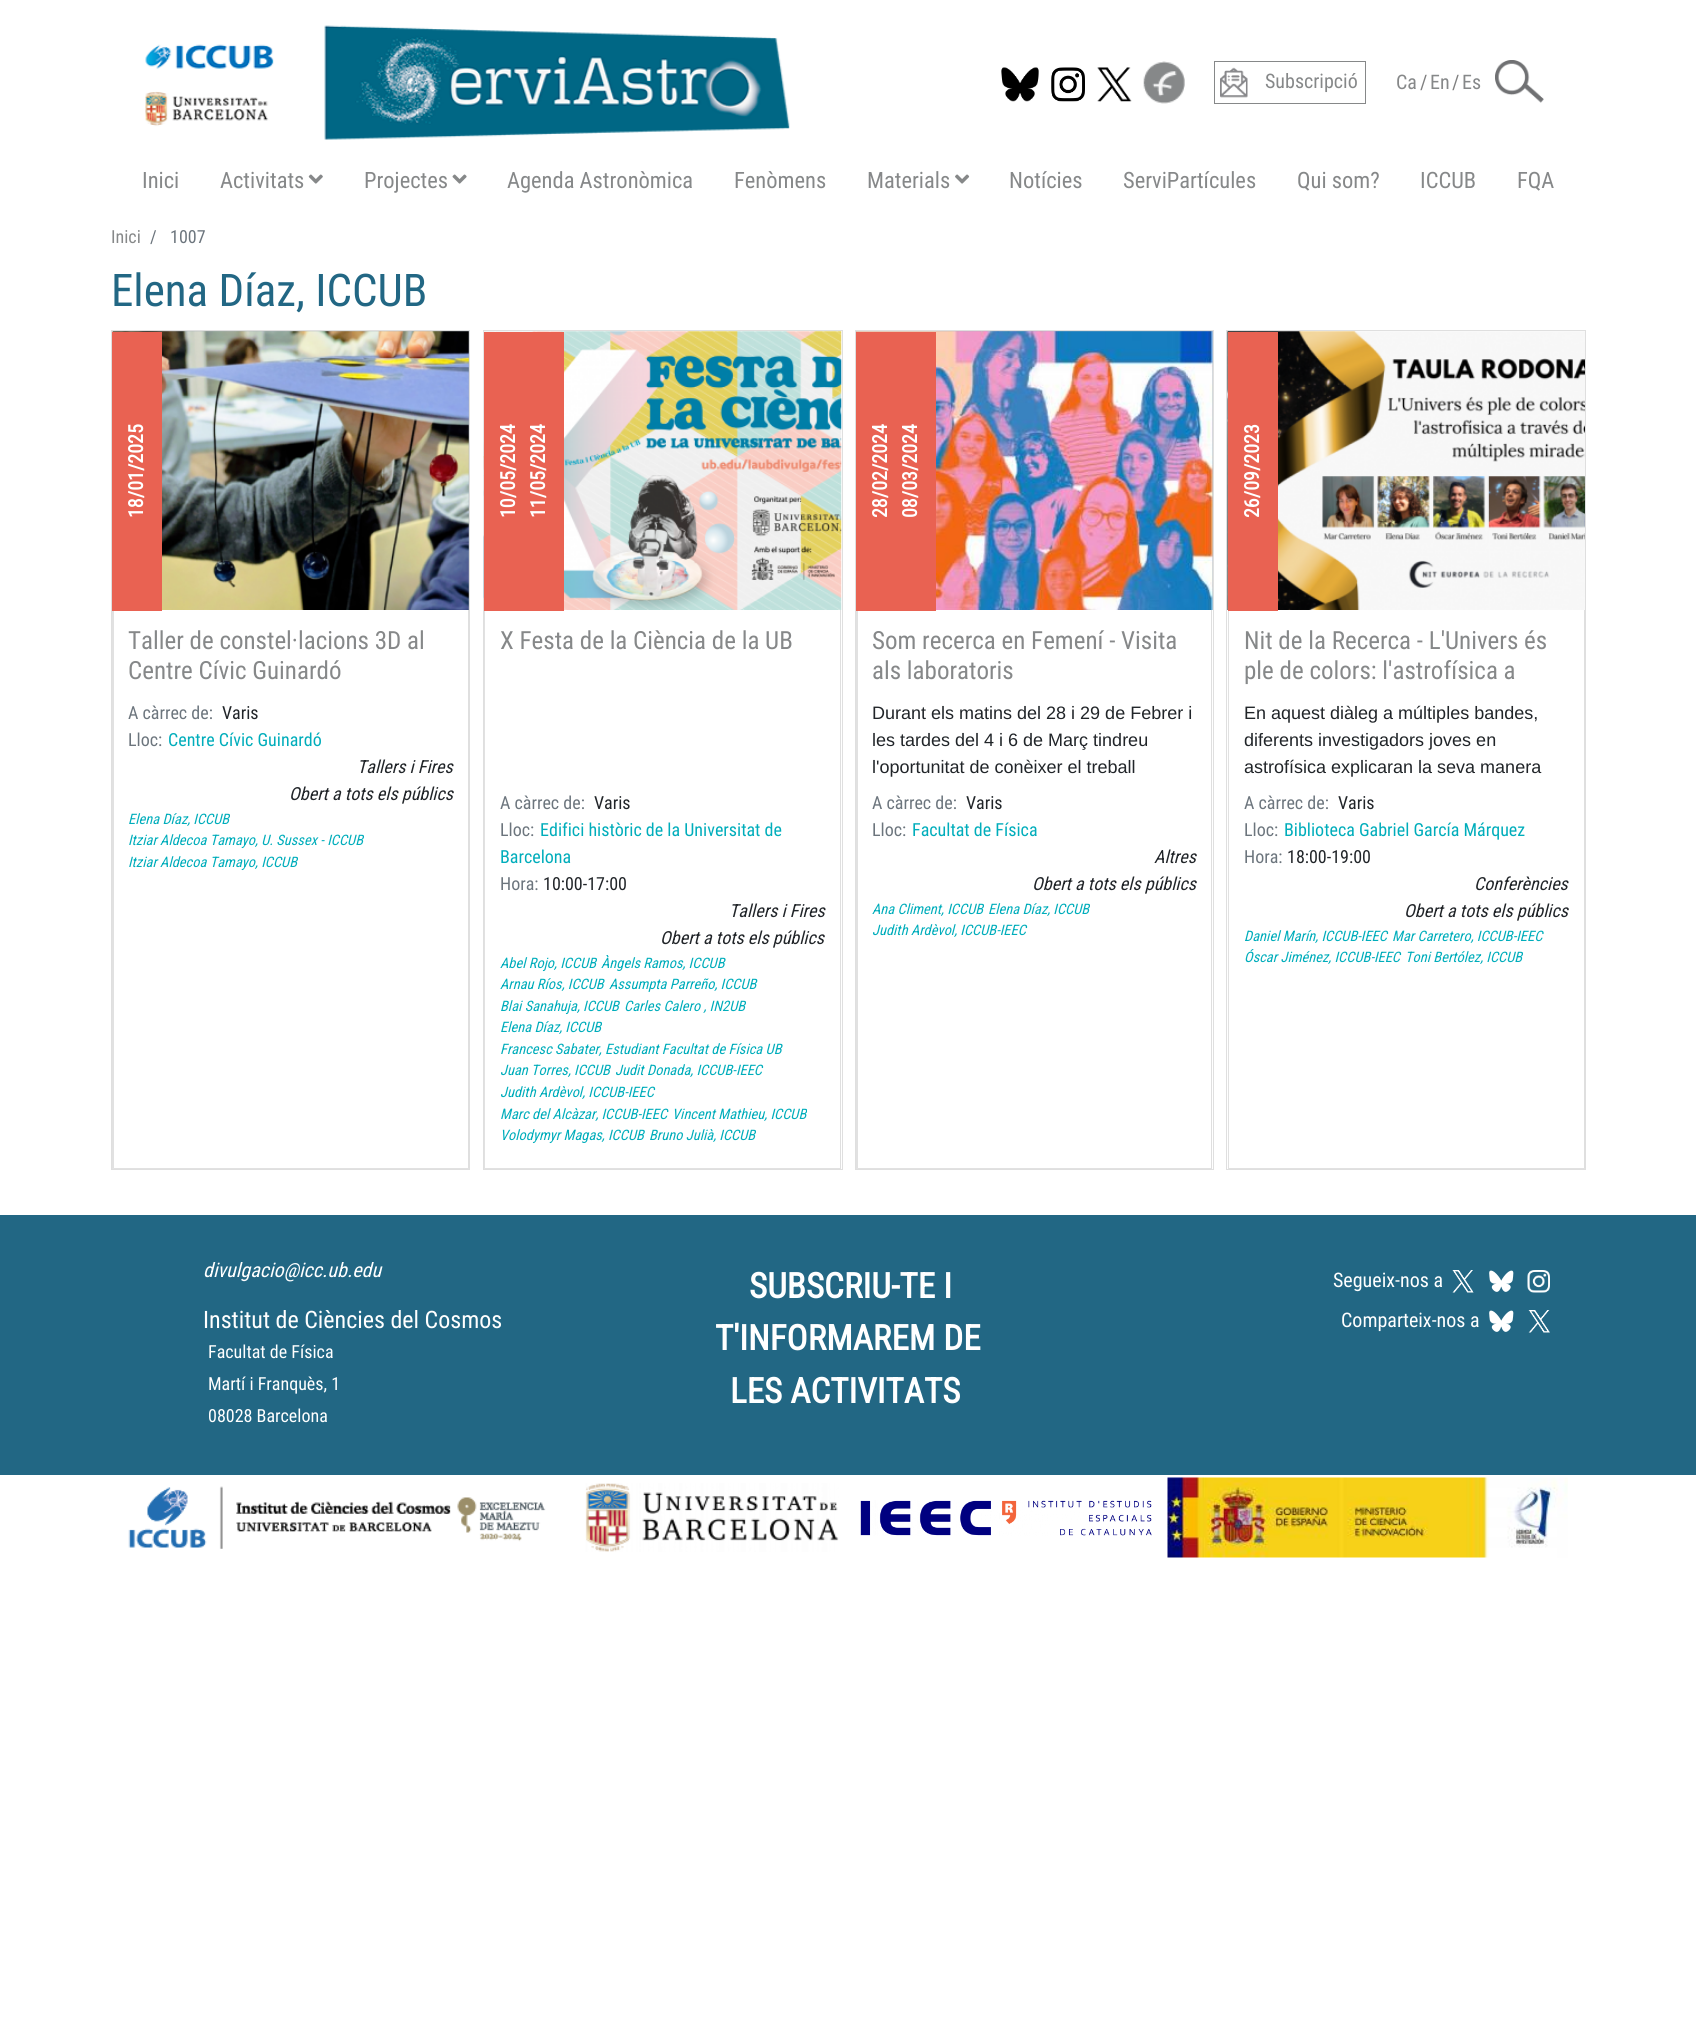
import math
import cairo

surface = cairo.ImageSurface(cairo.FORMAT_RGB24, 1696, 2020)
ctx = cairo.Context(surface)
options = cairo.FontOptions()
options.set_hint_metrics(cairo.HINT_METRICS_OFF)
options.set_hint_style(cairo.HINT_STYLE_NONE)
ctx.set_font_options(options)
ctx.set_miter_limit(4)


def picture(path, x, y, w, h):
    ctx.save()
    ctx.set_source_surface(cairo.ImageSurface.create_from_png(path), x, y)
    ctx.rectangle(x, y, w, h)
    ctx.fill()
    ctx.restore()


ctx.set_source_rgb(1, 1, 1)
ctx.paint()
picture("img1.png", 145, 25, 645, 115)
picture("img2.png", 1001, 67, 38, 35)
picture("img3.png", 1051, 67, 34, 35)
picture("img4.png", 1097, 67, 35, 35)
picture("img5.png", 1143, 61, 42, 43)
ctx.rectangle(1214.5, 61.5, 151, 42)
ctx.set_source_rgb(0.525, 0.533, 0.537)
ctx.set_line_width(1)
ctx.stroke()
picture("img6.png", 1220, 67, 28, 31)
ctx.select_font_face("Roboto Condensed")
ctx.set_font_size(20)
ctx.move_to(1265, 88)
ctx.show_text("Subscripció")
ctx.move_to(1396, 89)
ctx.show_text("Ca")
ctx.set_source_rgb(0.502, 0.502, 0.502)
ctx.move_to(1420, 89)
ctx.show_text("/")
ctx.set_source_rgb(0.525, 0.533, 0.537)
ctx.move_to(1430, 89)
ctx.show_text("En")
ctx.set_source_rgb(0.502, 0.502, 0.502)
ctx.move_to(1452, 89)
ctx.show_text("/")
ctx.set_source_rgb(0.525, 0.533, 0.537)
ctx.move_to(1462, 89)
ctx.show_text("Es")
picture("img7.png", 1495, 60, 49, 43)
ctx.set_font_size(22.5)
ctx.move_to(142, 188)
ctx.show_text("Inici")
ctx.move_to(220, 188)
ctx.show_text("Activitats")
picture("img8.png", 308, 174, 15, 10)
ctx.move_to(364, 188)
ctx.show_text("Projectes")
picture("img9.png", 452, 174, 15, 10)
ctx.move_to(507, 188)
ctx.show_text("Agenda Astronòmica")
ctx.move_to(734, 188)
ctx.show_text("Fenòmens")
ctx.move_to(867, 188)
ctx.show_text("Materials")
picture("img10.png", 955, 174, 15, 10)
ctx.move_to(1009, 188)
ctx.show_text("Notícies")
ctx.move_to(1123, 188)
ctx.show_text("ServiPartícules")
ctx.move_to(1297, 188)
ctx.show_text("Qui som?")
ctx.move_to(1420, 188)
ctx.show_text("ICCUB")
ctx.move_to(1517, 188)
ctx.show_text("FQA")
ctx.set_font_size(18)
ctx.move_to(111, 243)
ctx.show_text("Inici")
ctx.set_source_rgb(0.424, 0.459, 0.49)
ctx.move_to(150, 243)
ctx.show_text("/")
ctx.move_to(170, 243)
ctx.show_text("1007")
ctx.set_font_size(45)
ctx.set_source_rgb(0.133, 0.404, 0.518)
ctx.move_to(111, 306)
ctx.show_text("Elena Díaz, ICCUB")
ctx.rectangle(111.5, 330.5, 358, 839)
ctx.set_source_rgb(0.875, 0.875, 0.875)
ctx.stroke()
ctx.set_source_rgb(0.678, 0.71, 0.741)
ctx.rectangle(113, 331, 356, 279)
ctx.fill()
picture("img11.png", 112, 331, 357, 279)
ctx.set_source_rgb(0.875, 0.875, 0.875)
ctx.new_path()
ctx.move_to(469, 610)
ctx.line_to(469, 1169)
ctx.line_to(468, 1168)
ctx.line_to(468, 610)
ctx.close_path()
ctx.fill()
ctx.set_source_rgba(0, 0, 0, 0.12)
ctx.new_path()
ctx.move_to(469, 1169)
ctx.line_to(112, 1169)
ctx.line_to(114, 1168)
ctx.line_to(468, 1168)
ctx.close_path()
ctx.fill()
ctx.new_path()
ctx.move_to(112, 1169)
ctx.line_to(112, 610)
ctx.line_to(114, 610)
ctx.line_to(114, 1168)
ctx.close_path()
ctx.fill()
ctx.set_source_rgb(0.914, 0.384, 0.322)
ctx.rectangle(112, 332, 50, 279)
ctx.fill()
ctx.select_font_face("Roboto Condensed", cairo.FONT_SLANT_NORMAL, cairo.FONT_WEIGHT_BOLD)
ctx.set_font_size(20)
ctx.set_source_rgb(1, 1, 1)
ctx.save()
ctx.translate(143, 518)
ctx.rotate(-90 * math.pi / 180)
ctx.move_to(0, 0)
ctx.show_text("18/01/2025")
ctx.restore()
ctx.select_font_face("Roboto Condensed")
ctx.set_font_size(25)
ctx.set_source_rgb(0.525, 0.533, 0.537)
ctx.move_to(128, 649)
ctx.show_text("Taller de constel·lacions 3D al")
ctx.move_to(128, 679)
ctx.show_text("Centre Cívic Guinardó")
ctx.set_font_size(18)
ctx.set_source_rgb(0.424, 0.459, 0.49)
ctx.move_to(128, 719)
ctx.show_text("A càrrec de:")
ctx.set_source_rgb(0.129, 0.145, 0.161)
ctx.move_to(222, 719)
ctx.show_text("Varis")
ctx.set_source_rgb(0.424, 0.459, 0.49)
ctx.move_to(128, 746)
ctx.show_text("Lloc:")
ctx.set_source_rgb(0, 0.678, 0.733)
ctx.move_to(168, 746)
ctx.show_text("Centre Cívic Guinardó")
ctx.select_font_face("Roboto Condensed", cairo.FONT_SLANT_ITALIC)
ctx.set_source_rgb(0.129, 0.145, 0.161)
ctx.move_to(357, 773)
ctx.show_text("Tallers i Fires")
ctx.move_to(289, 800)
ctx.show_text("Obert a tots els públics")
ctx.set_font_size(14.4)
ctx.set_source_rgb(0, 0.678, 0.733)
ctx.move_to(128, 824)
ctx.show_text("Elena Díaz, ICCUB")
ctx.move_to(128, 845)
ctx.show_text("Itziar Aldecoa Tamayo, U. Sussex - ICCUB")
ctx.move_to(128, 867)
ctx.show_text("Itziar Aldecoa Tamayo, ICCUB")
ctx.rectangle(483.5, 330.5, 359, 839)
ctx.set_source_rgb(0.875, 0.875, 0.875)
ctx.stroke()
picture("img12.png", 483, 331, 359, 279)
ctx.new_path()
ctx.move_to(841, 610)
ctx.line_to(841, 1169)
ctx.line_to(840, 1168)
ctx.line_to(840, 610)
ctx.close_path()
ctx.fill()
ctx.set_source_rgba(0, 0, 0, 0.12)
ctx.new_path()
ctx.move_to(841, 1169)
ctx.line_to(484, 1169)
ctx.line_to(485, 1168)
ctx.line_to(840, 1168)
ctx.close_path()
ctx.fill()
ctx.new_path()
ctx.move_to(484, 1169)
ctx.line_to(484, 610)
ctx.line_to(485, 610)
ctx.line_to(485, 1168)
ctx.close_path()
ctx.fill()
ctx.set_source_rgb(0.914, 0.384, 0.322)
ctx.rectangle(484, 332, 80, 279)
ctx.fill()
ctx.select_font_face("Roboto Condensed", cairo.FONT_SLANT_NORMAL, cairo.FONT_WEIGHT_BOLD)
ctx.set_font_size(20)
ctx.set_source_rgb(1, 1, 1)
ctx.save()
ctx.translate(515, 518)
ctx.rotate(-90 * math.pi / 180)
ctx.move_to(0, 0)
ctx.show_text("10/05/2024")
ctx.restore()
ctx.save()
ctx.translate(545, 518)
ctx.rotate(-90 * math.pi / 180)
ctx.move_to(0, 0)
ctx.show_text("11/05/2024")
ctx.restore()
ctx.select_font_face("Roboto Condensed")
ctx.set_font_size(25)
ctx.set_source_rgb(0.525, 0.533, 0.537)
ctx.move_to(500, 649)
ctx.show_text("X Festa de la Ciència de la UB")
ctx.set_font_size(18)
ctx.set_source_rgb(0.424, 0.459, 0.49)
ctx.move_to(500, 809)
ctx.show_text("A càrrec de:")
ctx.set_source_rgb(0.129, 0.145, 0.161)
ctx.move_to(594, 809)
ctx.show_text("Varis")
ctx.set_source_rgb(0.424, 0.459, 0.49)
ctx.move_to(500, 836)
ctx.show_text("Lloc:")
ctx.set_source_rgb(0, 0.678, 0.733)
ctx.move_to(540, 836)
ctx.show_text("Edifici històric de la Universitat de")
ctx.move_to(500, 863)
ctx.show_text("Barcelona")
ctx.set_source_rgb(0.424, 0.459, 0.49)
ctx.move_to(500, 890)
ctx.show_text("Hora:")
ctx.set_source_rgb(0.129, 0.145, 0.161)
ctx.move_to(543, 890)
ctx.show_text("10:00-17:00")
ctx.select_font_face("Roboto Condensed", cairo.FONT_SLANT_ITALIC)
ctx.move_to(729, 917)
ctx.show_text("Tallers i Fires")
ctx.move_to(660, 944)
ctx.show_text("Obert a tots els públics")
ctx.set_font_size(14.4)
ctx.set_source_rgb(0, 0.678, 0.733)
ctx.move_to(500, 968)
ctx.show_text("Abel Rojo, ICCUB")
ctx.move_to(601, 968)
ctx.show_text("Àngels Ramos, ICCUB")
ctx.move_to(500, 989)
ctx.show_text("Arnau Ríos, ICCUB")
ctx.move_to(609, 989)
ctx.show_text("Assumpta Parreño, ICCUB")
ctx.move_to(500, 1011)
ctx.show_text("Blai Sanahuja, ICCUB")
ctx.move_to(624, 1011)
ctx.show_text("Carles Calero , IN2UB")
ctx.move_to(500, 1032)
ctx.show_text("Elena Díaz, ICCUB")
ctx.move_to(500, 1054)
ctx.show_text("Francesc Sabater, Estudiant Facultat de Física UB")
ctx.move_to(500, 1075)
ctx.show_text("Juan Torres, ICCUB")
ctx.move_to(615, 1075)
ctx.show_text("Judit Donada, ICCUB-IEEC")
ctx.move_to(500, 1097)
ctx.show_text("Judith Ardèvol, ICCUB-IEEC")
ctx.move_to(500, 1119)
ctx.show_text("Marc del Alcàzar, ICCUB-IEEC")
ctx.move_to(672, 1119)
ctx.show_text("Vincent Mathieu, ICCUB")
ctx.move_to(500, 1140)
ctx.show_text("Volodymyr Magas, ICCUB")
ctx.move_to(649, 1140)
ctx.show_text("Bruno Julià, ICCUB")
ctx.rectangle(855.5, 330.5, 358, 839)
ctx.set_source_rgb(0.875, 0.875, 0.875)
ctx.stroke()
ctx.set_source_rgb(0.678, 0.71, 0.741)
ctx.rectangle(856, 331, 357, 279)
ctx.fill()
picture("img13.png", 856, 331, 357, 279)
ctx.set_source_rgb(0.875, 0.875, 0.875)
ctx.new_path()
ctx.move_to(1212, 610)
ctx.line_to(1212, 1169)
ctx.line_to(1211, 1168)
ctx.line_to(1211, 610)
ctx.close_path()
ctx.fill()
ctx.set_source_rgba(0, 0, 0, 0.12)
ctx.new_path()
ctx.move_to(1212, 1169)
ctx.line_to(856, 1169)
ctx.line_to(858, 1168)
ctx.line_to(1211, 1168)
ctx.close_path()
ctx.fill()
ctx.new_path()
ctx.move_to(856, 1169)
ctx.line_to(856, 610)
ctx.line_to(858, 610)
ctx.line_to(858, 1168)
ctx.close_path()
ctx.fill()
ctx.set_source_rgb(0.914, 0.384, 0.322)
ctx.rectangle(856, 332, 80, 279)
ctx.fill()
ctx.select_font_face("Roboto Condensed", cairo.FONT_SLANT_NORMAL, cairo.FONT_WEIGHT_BOLD)
ctx.set_font_size(20)
ctx.set_source_rgb(1, 1, 1)
ctx.save()
ctx.translate(887, 518)
ctx.rotate(-90 * math.pi / 180)
ctx.move_to(0, 0)
ctx.show_text("28/02/2024")
ctx.restore()
ctx.save()
ctx.translate(917, 518)
ctx.rotate(-90 * math.pi / 180)
ctx.move_to(0, 0)
ctx.show_text("08/03/2024")
ctx.restore()
ctx.select_font_face("Roboto Condensed")
ctx.set_font_size(25)
ctx.set_source_rgb(0.525, 0.533, 0.537)
ctx.move_to(872, 649)
ctx.show_text("Som recerca en Femení - Visita")
ctx.move_to(872, 679)
ctx.show_text("als laboratoris")
ctx.select_font_face("Liberation Sans")
ctx.set_font_size(18)
ctx.set_source_rgb(0.129, 0.145, 0.161)
ctx.move_to(872, 719)
ctx.show_text("Durant els matins del 28 i 29 de Febrer i")
ctx.move_to(872, 746)
ctx.show_text("les tardes del 4 i 6 de Març tindreu")
ctx.move_to(872, 773)
ctx.show_text("l'oportunitat de conèixer el treball")
ctx.select_font_face("Roboto Condensed")
ctx.set_source_rgb(0.424, 0.459, 0.49)
ctx.move_to(872, 809)
ctx.show_text("A càrrec de:")
ctx.set_source_rgb(0.129, 0.145, 0.161)
ctx.move_to(966, 809)
ctx.show_text("Varis")
ctx.set_source_rgb(0.424, 0.459, 0.49)
ctx.move_to(872, 836)
ctx.show_text("Lloc:")
ctx.set_source_rgb(0, 0.678, 0.733)
ctx.move_to(912, 836)
ctx.show_text("Facultat de Física")
ctx.select_font_face("Roboto Condensed", cairo.FONT_SLANT_ITALIC)
ctx.set_source_rgb(0.129, 0.145, 0.161)
ctx.move_to(1154, 863)
ctx.show_text("Altres")
ctx.move_to(1032, 890)
ctx.show_text("Obert a tots els públics")
ctx.set_font_size(14.4)
ctx.set_source_rgb(0, 0.678, 0.733)
ctx.move_to(872, 914)
ctx.show_text("Ana Climent, ICCUB")
ctx.move_to(988, 914)
ctx.show_text("Elena Díaz, ICCUB")
ctx.move_to(872, 935)
ctx.show_text("Judith Ardèvol, ICCUB-IEEC")
ctx.rectangle(1226.5, 330.5, 359, 839)
ctx.set_source_rgb(0.875, 0.875, 0.875)
ctx.stroke()
picture("img14.png", 1227, 331, 358, 279)
ctx.new_path()
ctx.move_to(1585, 610)
ctx.line_to(1585, 1169)
ctx.line_to(1584, 1168)
ctx.line_to(1584, 610)
ctx.close_path()
ctx.fill()
ctx.set_source_rgba(0, 0, 0, 0.12)
ctx.new_path()
ctx.move_to(1585, 1169)
ctx.line_to(1228, 1169)
ctx.line_to(1229, 1168)
ctx.line_to(1584, 1168)
ctx.close_path()
ctx.fill()
ctx.new_path()
ctx.move_to(1228, 1169)
ctx.line_to(1228, 610)
ctx.line_to(1229, 610)
ctx.line_to(1229, 1168)
ctx.close_path()
ctx.fill()
ctx.set_source_rgb(0.914, 0.384, 0.322)
ctx.rectangle(1228, 332, 50, 279)
ctx.fill()
ctx.select_font_face("Roboto Condensed", cairo.FONT_SLANT_NORMAL, cairo.FONT_WEIGHT_BOLD)
ctx.set_font_size(20)
ctx.set_source_rgb(1, 1, 1)
ctx.save()
ctx.translate(1259, 518)
ctx.rotate(-90 * math.pi / 180)
ctx.move_to(0, 0)
ctx.show_text("26/09/2023")
ctx.restore()
ctx.select_font_face("Roboto Condensed")
ctx.set_font_size(25)
ctx.set_source_rgb(0.525, 0.533, 0.537)
ctx.move_to(1244, 649)
ctx.show_text("Nit de la Recerca - L'Univers és")
ctx.move_to(1244, 679)
ctx.show_text("ple de colors: l'astrofísica a")
ctx.select_font_face("Liberation Sans")
ctx.set_font_size(18)
ctx.set_source_rgb(0.129, 0.145, 0.161)
ctx.move_to(1244, 719)
ctx.show_text("En aquest diàleg a múltiples bandes,")
ctx.move_to(1244, 746)
ctx.show_text("diferents investigadors joves en")
ctx.move_to(1244, 773)
ctx.show_text("astrofísica explicaran la seva manera")
ctx.select_font_face("Roboto Condensed")
ctx.set_source_rgb(0.424, 0.459, 0.49)
ctx.move_to(1244, 809)
ctx.show_text("A càrrec de:")
ctx.set_source_rgb(0.129, 0.145, 0.161)
ctx.move_to(1338, 809)
ctx.show_text("Varis")
ctx.set_source_rgb(0.424, 0.459, 0.49)
ctx.move_to(1244, 836)
ctx.show_text("Lloc:")
ctx.set_source_rgb(0, 0.678, 0.733)
ctx.move_to(1284, 836)
ctx.show_text("Biblioteca Gabriel García Márquez")
ctx.set_source_rgb(0.424, 0.459, 0.49)
ctx.move_to(1244, 863)
ctx.show_text("Hora:")
ctx.set_source_rgb(0.129, 0.145, 0.161)
ctx.move_to(1287, 863)
ctx.show_text("18:00-19:00")
ctx.select_font_face("Roboto Condensed", cairo.FONT_SLANT_ITALIC)
ctx.move_to(1474, 890)
ctx.show_text("Conferències")
ctx.move_to(1404, 917)
ctx.show_text("Obert a tots els públics")
ctx.set_font_size(14.4)
ctx.set_source_rgb(0, 0.678, 0.733)
ctx.move_to(1244, 941)
ctx.show_text("Daniel Marín, ICCUB-IEEC")
ctx.move_to(1392, 941)
ctx.show_text("Mar Carretero, ICCUB-IEEC")
ctx.move_to(1244, 962)
ctx.show_text("Óscar Jiménez, ICCUB-IEEC")
ctx.move_to(1405, 962)
ctx.show_text("Toni Bertólez, ICCUB")
ctx.set_source_rgb(0.133, 0.404, 0.518)
ctx.rectangle(0, 1215, 1696, 260)
ctx.fill()
ctx.set_font_size(20)
ctx.set_source_rgb(1, 1, 1)
ctx.move_to(203, 1277)
ctx.show_text("divulgacio@icc.ub.edu")
ctx.select_font_face("Roboto Condensed")
ctx.set_font_size(24)
ctx.move_to(203, 1328)
ctx.show_text("Institut de Ciències del Cosmos")
ctx.set_font_size(18)
ctx.move_to(208, 1358)
ctx.show_text("Facultat de Física")
ctx.move_to(208, 1390)
ctx.show_text("Martí i Franquès, 1")
ctx.move_to(208, 1422)
ctx.show_text("08028 Barcelona")
ctx.select_font_face("Roboto Condensed", cairo.FONT_SLANT_NORMAL, cairo.FONT_WEIGHT_BOLD)
ctx.set_font_size(35)
ctx.move_to(749, 1298)
ctx.show_text("SUBSCRIU-TE I")
ctx.move_to(715, 1350)
ctx.show_text("T'INFORMAREM DE")
ctx.move_to(730, 1403)
ctx.show_text("LES ACTIVITATS")
ctx.select_font_face("Roboto Condensed")
ctx.set_font_size(20)
ctx.move_to(1333, 1287)
ctx.show_text("Segueix-nos a")
picture("img15.png", 1452, 1270, 22, 23)
picture("img16.png", 1489, 1270, 25, 22)
picture("img17.png", 1527, 1270, 23, 23)
ctx.move_to(1341, 1327)
ctx.show_text("Comparteix-nos a")
picture("img16.png", 1489, 1310, 25, 22)
picture("img18.png", 1528, 1310, 22, 23)
picture("img19.png", 128, 1486, 418, 63)
picture("img20.png", 585, 1483, 254, 69)
picture("img21.png", 860, 1500, 292, 36)
picture("img22.png", 1167, 1477, 401, 81)
surface.write_to_png("page.png")
